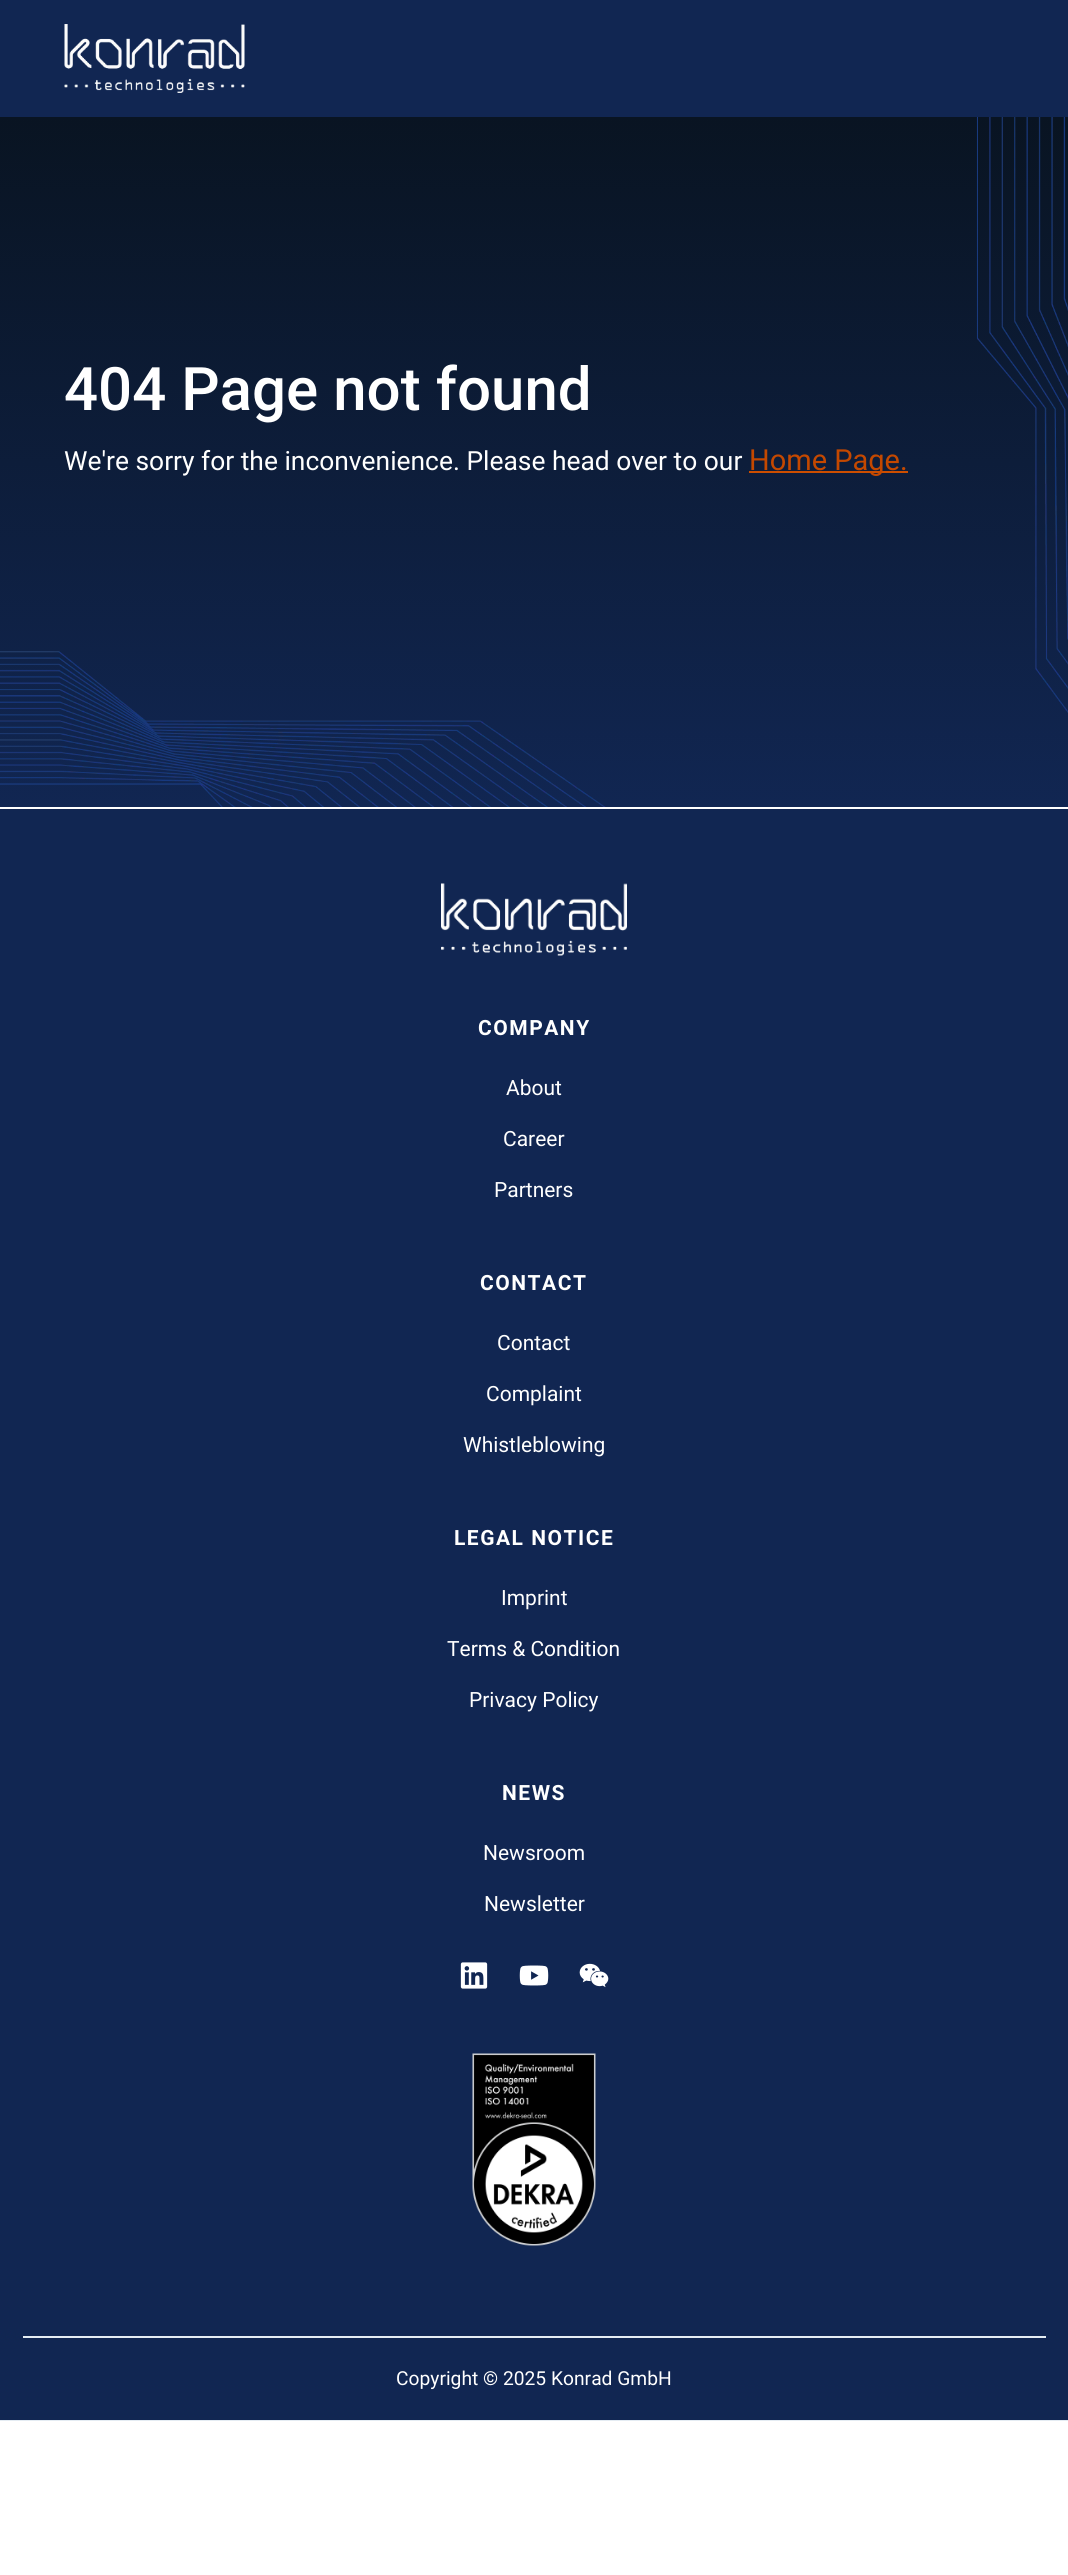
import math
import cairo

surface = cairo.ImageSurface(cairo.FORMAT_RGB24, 1068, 2575)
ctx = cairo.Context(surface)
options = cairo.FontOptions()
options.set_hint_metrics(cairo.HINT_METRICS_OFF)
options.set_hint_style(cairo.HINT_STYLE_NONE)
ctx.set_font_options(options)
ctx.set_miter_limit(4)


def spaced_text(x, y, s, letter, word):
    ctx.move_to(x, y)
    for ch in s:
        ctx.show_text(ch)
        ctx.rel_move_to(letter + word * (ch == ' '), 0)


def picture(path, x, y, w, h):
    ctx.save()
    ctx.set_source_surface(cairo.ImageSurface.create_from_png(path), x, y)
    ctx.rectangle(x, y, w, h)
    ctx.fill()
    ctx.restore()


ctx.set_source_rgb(1, 1, 1)
ctx.paint()
ctx.set_source_rgb(0.067, 0.149, 0.322)
ctx.rectangle(0, 0, 1068, 117)
ctx.fill()
picture("img1.png", 64, 24, 181, 69)
picture("img2.png", 0, 117, 1068, 690)
ctx.select_font_face("Roboto Medium")
ctx.set_font_size(60)
ctx.set_source_rgb(1, 1, 1)
ctx.move_to(64, 410)
ctx.show_text("404 Page not found")
ctx.select_font_face("Roboto")
ctx.set_font_size(26.4)
ctx.move_to(64, 470)
ctx.show_text("We're sorry for the inconvenience. Please head over to our")
ctx.set_source_rgb(0.8, 0.306, 0)
ctx.rectangle(749, 471, 159, 2)
ctx.fill()
ctx.set_font_size(29)
ctx.set_source_rgb(0.769, 0.282, 0)
ctx.move_to(749, 470)
ctx.show_text("Home Page.")
ctx.set_source_rgb(0.067, 0.149, 0.322)
ctx.rectangle(0, 809, 1068, 1611)
ctx.fill()
ctx.set_source_rgb(0.894, 0.922, 0.953)
ctx.rectangle(0, 2420, 1068, 1)
ctx.fill()
picture("img3.png", 441, 883, 186, 73)
ctx.select_font_face("Roboto", cairo.FONT_SLANT_NORMAL, cairo.FONT_WEIGHT_BOLD)
ctx.set_font_size(21)
ctx.set_source_rgb(1, 1, 1)
spaced_text(478, 1035, "COMPANY", 1.5, 0)
ctx.select_font_face("Roboto")
ctx.move_to(506, 1095)
ctx.show_text("About")
ctx.move_to(503, 1146)
ctx.show_text("Career")
ctx.move_to(494, 1197)
ctx.show_text("Partners")
ctx.select_font_face("Roboto", cairo.FONT_SLANT_NORMAL, cairo.FONT_WEIGHT_BOLD)
spaced_text(480, 1290, "CONTACT", 1.5, 0)
ctx.select_font_face("Roboto")
ctx.move_to(497, 1350)
ctx.show_text("Contact")
ctx.move_to(486, 1401)
ctx.show_text("Complaint")
ctx.move_to(463, 1452)
ctx.show_text("Whistleblowing")
ctx.select_font_face("Roboto", cairo.FONT_SLANT_NORMAL, cairo.FONT_WEIGHT_BOLD)
spaced_text(454, 1545, "LEGAL NOTICE", 1.5, 0)
ctx.select_font_face("Roboto")
ctx.move_to(501, 1605)
ctx.show_text("Imprint")
ctx.move_to(447, 1656)
ctx.show_text("Terms & Condition")
ctx.move_to(469, 1707)
ctx.show_text("Privacy Policy")
ctx.select_font_face("Roboto", cairo.FONT_SLANT_NORMAL, cairo.FONT_WEIGHT_BOLD)
spaced_text(502, 1800, "NEWS", 1.5, 0)
ctx.select_font_face("Roboto")
ctx.move_to(483, 1860)
ctx.show_text("Newsroom")
ctx.move_to(484, 1911)
ctx.show_text("Newsletter")
picture("img4.png", 460, 1962, 28, 27)
picture("img5.png", 519, 1965, 30, 21)
picture("img6.png", 579, 1963, 30, 25)
picture("img7.png", 472, 2053, 124, 193)
ctx.set_source_rgb(0.894, 0.922, 0.953)
ctx.rectangle(23, 2336, 1023, 2)
ctx.fill()
ctx.set_font_size(19.25)
ctx.set_source_rgb(1, 1, 1)
ctx.move_to(396, 2385)
ctx.show_text("Copyright © 2025 Konrad GmbH")
surface.write_to_png("page.png")
